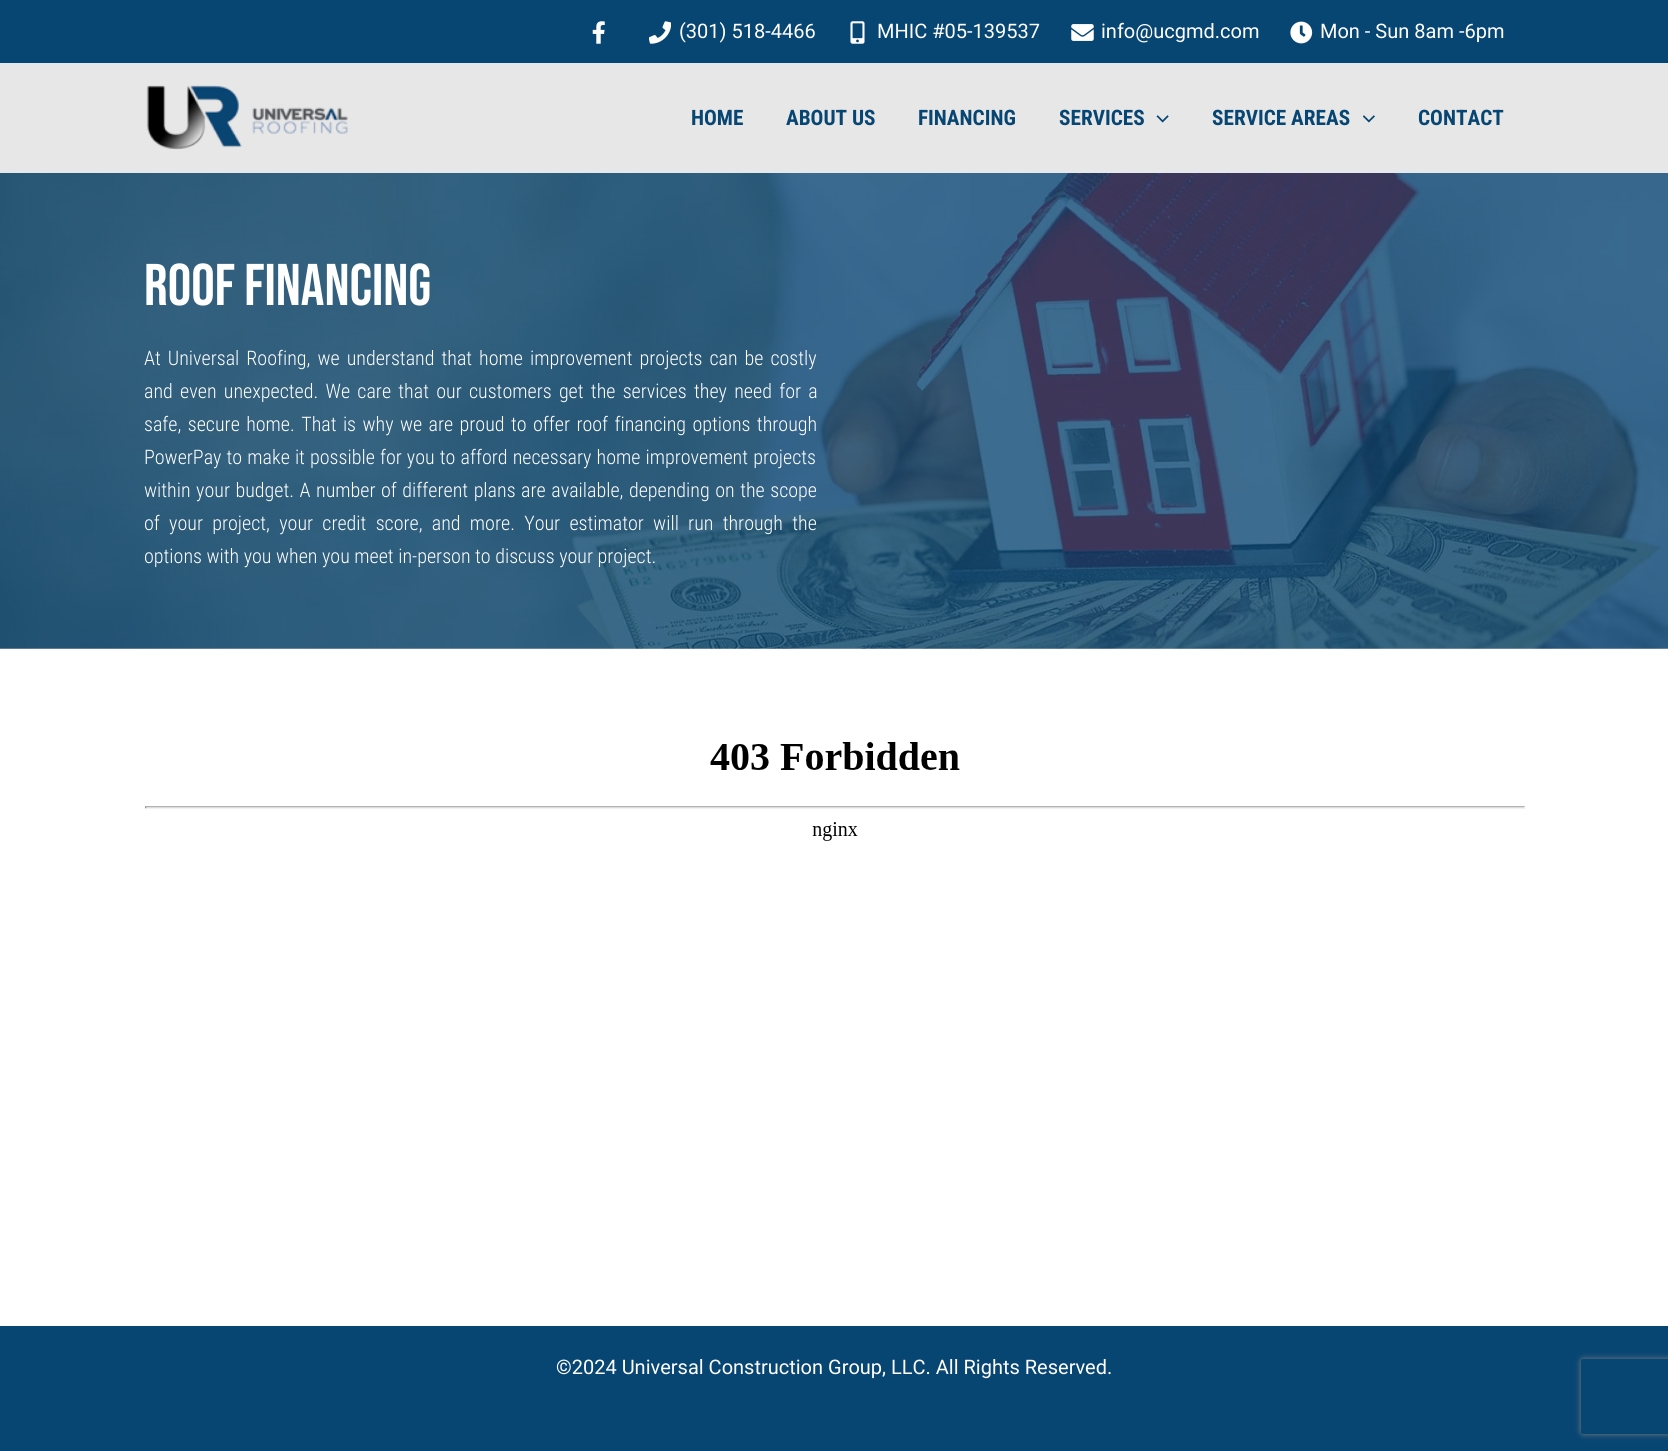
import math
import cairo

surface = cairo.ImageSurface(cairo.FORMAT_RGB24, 1668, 1451)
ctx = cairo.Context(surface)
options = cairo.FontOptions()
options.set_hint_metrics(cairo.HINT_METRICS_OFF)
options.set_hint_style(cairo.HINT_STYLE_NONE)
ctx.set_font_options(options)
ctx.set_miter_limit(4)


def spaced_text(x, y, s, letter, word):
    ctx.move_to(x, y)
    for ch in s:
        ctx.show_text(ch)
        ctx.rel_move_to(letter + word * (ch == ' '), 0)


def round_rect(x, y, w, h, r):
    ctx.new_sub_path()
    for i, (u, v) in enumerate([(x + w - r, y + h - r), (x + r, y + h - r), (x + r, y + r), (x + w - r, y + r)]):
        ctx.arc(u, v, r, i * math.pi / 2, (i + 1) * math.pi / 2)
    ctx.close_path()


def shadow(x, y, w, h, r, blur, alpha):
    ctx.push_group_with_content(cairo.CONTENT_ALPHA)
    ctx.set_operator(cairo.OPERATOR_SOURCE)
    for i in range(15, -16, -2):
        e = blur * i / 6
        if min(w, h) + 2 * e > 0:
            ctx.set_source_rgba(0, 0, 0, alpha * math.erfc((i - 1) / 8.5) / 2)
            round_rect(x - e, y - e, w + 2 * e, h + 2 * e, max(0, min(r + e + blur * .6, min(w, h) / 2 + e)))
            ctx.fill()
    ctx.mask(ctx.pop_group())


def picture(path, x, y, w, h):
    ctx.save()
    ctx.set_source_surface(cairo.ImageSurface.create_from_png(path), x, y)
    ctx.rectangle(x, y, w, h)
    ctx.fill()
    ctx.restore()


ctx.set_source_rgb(1, 1, 1)
ctx.paint()
ctx.set_source_rgb(0.031, 0.271, 0.447)
ctx.rectangle(0, 0, 1668, 63)
ctx.fill()
ctx.set_source_rgb(0.886, 0.91, 0.941)
ctx.rectangle(0, 63, 1668, 1)
ctx.fill()
picture("img1.png", 592, 21, 13, 23)
picture("img2.png", 649, 21, 22, 23)
ctx.select_font_face("Roboto")
ctx.set_font_size(20)
ctx.set_source_rgb(1, 1, 1)
ctx.move_to(679, 38)
ctx.show_text("(301) 518-4466")
picture("img3.png", 850, 21, 15, 23)
ctx.move_to(877, 38)
ctx.show_text("MHIC #05-139537")
picture("img4.png", 1071, 24, 23, 17)
ctx.move_to(1101, 38)
ctx.show_text("info@ucgmd.com")
picture("img5.png", 1290, 21, 23, 23)
ctx.move_to(1320, 38)
ctx.show_text("Mon - Sun 8am -6pm")
ctx.set_source_rgb(0.906, 0.906, 0.906)
ctx.rectangle(0, 64, 1668, 109)
ctx.fill()
ctx.set_source_rgb(0.886, 0.91, 0.941)
ctx.rectangle(0, 171, 1668, 1)
ctx.fill()
picture("img6.png", 146, 85, 202, 65)
ctx.select_font_face("Roboto Condensed", cairo.FONT_SLANT_NORMAL, cairo.FONT_WEIGHT_BOLD)
ctx.set_font_size(21.25)
ctx.set_source_rgb(0.031, 0.271, 0.447)
ctx.move_to(691, 125)
ctx.show_text("HOME")
ctx.move_to(786, 125)
ctx.show_text("ABOUT US")
ctx.move_to(918, 125)
ctx.show_text("FINANCING")
ctx.move_to(1059, 125)
ctx.show_text("SERVICES")
picture("img7.png", 1156, 115, 13, 8)
ctx.move_to(1212, 125)
ctx.show_text("SERVICE AREAS")
picture("img8.png", 1363, 115, 12, 8)
ctx.move_to(1418, 125)
ctx.show_text("CONTACT")
picture("img9.png", 0, 173, 1668, 476)
ctx.select_font_face("Bebas Neue")
ctx.set_font_size(58.75)
ctx.set_source_rgb(1, 1, 1)
ctx.move_to(144, 305)
ctx.show_text("ROOF FINANCING")
ctx.select_font_face("Roboto Condensed Light")
ctx.set_font_size(20)
spaced_text(144, 365, "At Universal Roofing, we understand that home improvement projects can be costly", 0, 2.5)
spaced_text(144, 398, "and even unexpected. We care that our customers get the services they need for a", 0, 2.75)
spaced_text(144, 431, "safe, secure home. That is why we are proud to offer roof financing options through", 0, 1.9)
spaced_text(144, 464, "PowerPay to make it possible for you to afford necessary home improvement projects", 0, 0.6)
spaced_text(144, 497, "within your budget. A number of different plans are available, depending on the scope", 0, 1)
spaced_text(144, 530, "of your project, your credit score, and more. Your estimator will run through the", 0, 4.75)
ctx.move_to(144, 563)
ctx.show_text("options with you when you meet in-person to discuss your project.")
picture("img10.png", 145, 742, 1380, 99)
ctx.set_source_rgb(0.031, 0.271, 0.447)
ctx.rectangle(0, 1326, 1668, 125)
ctx.fill()
ctx.select_font_face("Roboto")
ctx.set_source_rgb(1, 1, 1)
ctx.move_to(556, 1374)
ctx.show_text("©2024 Universal Construction Group, LLC. All Rights Reserved.")
ctx.save()
ctx.set_fill_rule(cairo.FILL_RULE_EVEN_ODD)
ctx.new_path()
ctx.move_to(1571, 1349)
ctx.line_to(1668, 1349)
ctx.line_to(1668, 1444)
ctx.line_to(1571, 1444)
ctx.close_path()
ctx.move_to(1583.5, 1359)
ctx.line_to(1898.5, 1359)
ctx.curve_to(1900, 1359, 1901, 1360, 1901, 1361.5)
ctx.line_to(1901, 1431.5)
ctx.curve_to(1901, 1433, 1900, 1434, 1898.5, 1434)
ctx.line_to(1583.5, 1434)
ctx.curve_to(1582, 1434, 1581, 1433, 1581, 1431.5)
ctx.line_to(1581, 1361.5)
ctx.curve_to(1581, 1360, 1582, 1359, 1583.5, 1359)
ctx.close_path()
ctx.clip()
ctx.set_source_rgb(0.502, 0.502, 0.502)
shadow(1581, 1359, 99, 75, 2.5, 3, 1)
ctx.restore()
surface.write_to_png("page.png")
